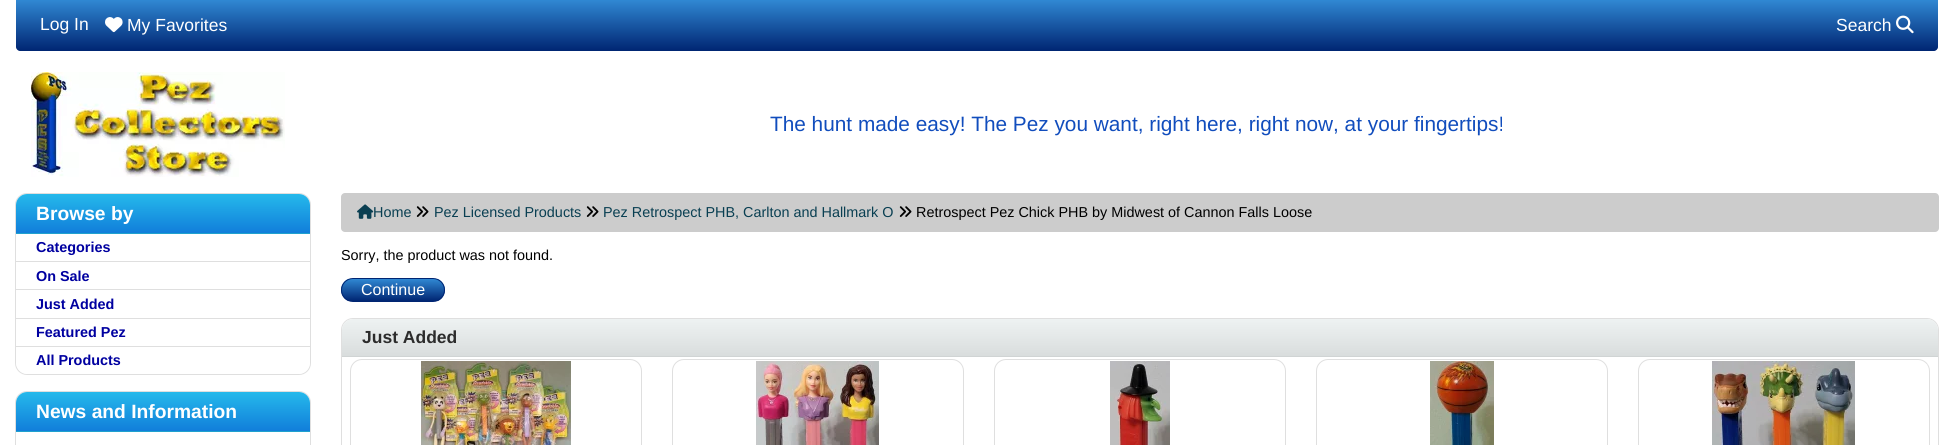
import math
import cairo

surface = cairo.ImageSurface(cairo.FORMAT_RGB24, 1954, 445)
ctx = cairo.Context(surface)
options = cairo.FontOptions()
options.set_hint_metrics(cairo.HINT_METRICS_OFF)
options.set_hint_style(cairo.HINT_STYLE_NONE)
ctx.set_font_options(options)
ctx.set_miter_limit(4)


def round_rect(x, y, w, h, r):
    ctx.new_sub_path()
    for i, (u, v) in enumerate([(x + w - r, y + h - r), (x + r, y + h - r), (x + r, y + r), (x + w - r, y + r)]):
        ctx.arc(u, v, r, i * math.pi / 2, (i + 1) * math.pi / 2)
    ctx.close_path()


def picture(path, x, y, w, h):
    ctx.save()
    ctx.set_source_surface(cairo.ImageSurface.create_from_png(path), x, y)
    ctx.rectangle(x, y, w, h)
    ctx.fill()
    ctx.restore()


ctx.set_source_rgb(1, 1, 1)
ctx.paint()
gradient = cairo.LinearGradient(977, 0, 977, 51)
gradient.add_color_stop_rgba(0, 0.188, 0.533, 0.827, 1)
gradient.add_color_stop_rgba(1, 0, 0.145, 0.447, 1)
ctx.set_source(gradient)
ctx.new_path()
ctx.move_to(16, 0)
ctx.line_to(1938, 0)
ctx.line_to(1938, 47)
ctx.curve_to(1938, 49, 1936, 51, 1934, 51)
ctx.line_to(20, 51)
ctx.curve_to(18, 51, 16, 49, 16, 47)
ctx.close_path()
ctx.fill()
ctx.select_font_face("Liberation Sans")
ctx.set_font_size(17.5)
ctx.set_source_rgb(1, 1, 1)
ctx.move_to(40, 30)
ctx.show_text("Log In")
picture("img1.png", 105, 17, 18, 16)
ctx.move_to(127, 31)
ctx.show_text("My Favorites")
ctx.move_to(1836, 31)
ctx.show_text("Search")
picture("img2.png", 1896, 15, 18, 19)
picture("img3.png", 31, 72, 254, 105)
ctx.set_font_size(20.8)
ctx.set_source_rgb(0.067, 0.302, 0.741)
ctx.move_to(770, 131)
ctx.show_text("The hunt made easy! The Pez you want, right here, right now, at your fingertips!")
round_rect(15.5, 193.5, 295, 181, 11.5)
ctx.set_source_rgb(0.875, 0.875, 0.875)
ctx.set_line_width(1)
ctx.stroke()
gradient = cairo.LinearGradient(163, 194, 163, 233)
gradient.add_color_stop_rgba(0, 0.145, 0.725, 0.922, 1)
gradient.add_color_stop_rgba(1, 0.067, 0.494, 0.855, 1)
ctx.set_source(gradient)
ctx.new_path()
ctx.move_to(27, 194)
ctx.line_to(299, 194)
ctx.curve_to(305, 194, 310, 199, 310, 205)
ctx.line_to(310, 233)
ctx.line_to(16, 233)
ctx.line_to(16, 205)
ctx.curve_to(16, 199, 21, 194, 27, 194)
ctx.close_path()
ctx.fill()
ctx.set_source_rgb(0.125, 0.631, 0.808)
ctx.rectangle(16, 233, 294, 1)
ctx.fill()
ctx.select_font_face("Liberation Sans", cairo.FONT_SLANT_NORMAL, cairo.FONT_WEIGHT_BOLD)
ctx.set_font_size(19.25)
ctx.set_source_rgb(1, 1, 1)
ctx.move_to(36, 220)
ctx.show_text("Browse by")
ctx.set_source_rgb(0.875, 0.875, 0.875)
ctx.rectangle(16, 261, 294, 1)
ctx.fill()
ctx.set_font_size(14.4)
ctx.set_source_rgb(0, 0, 0.627)
ctx.move_to(36, 252)
ctx.show_text("Categories")
ctx.set_source_rgb(0.875, 0.875, 0.875)
ctx.rectangle(16, 289, 294, 1)
ctx.fill()
ctx.set_source_rgb(0, 0, 0.627)
ctx.move_to(36, 281)
ctx.show_text("On Sale")
ctx.set_source_rgb(0.875, 0.875, 0.875)
ctx.rectangle(16, 318, 294, 1)
ctx.fill()
ctx.set_source_rgb(0, 0, 0.627)
ctx.move_to(36, 309)
ctx.show_text("Just Added")
ctx.set_source_rgb(0.875, 0.875, 0.875)
ctx.rectangle(16, 346, 294, 1)
ctx.fill()
ctx.set_source_rgb(0, 0, 0.627)
ctx.move_to(36, 337)
ctx.show_text("Featured Pez")
ctx.set_source_rgb(1, 1, 1)
ctx.new_path()
ctx.move_to(16, 347)
ctx.line_to(310, 347)
ctx.line_to(310, 362)
ctx.curve_to(310, 368.5, 304.5, 374, 298, 374)
ctx.line_to(28, 374)
ctx.curve_to(21.5, 374, 16, 368.5, 16, 362)
ctx.close_path()
ctx.fill()
ctx.set_source_rgb(0, 0, 0.627)
ctx.move_to(36, 365)
ctx.show_text("All Products")
round_rect(15.5, 391.5, 295, 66, 11.5)
ctx.set_source_rgb(0.875, 0.875, 0.875)
ctx.stroke()
gradient = cairo.LinearGradient(163, 392, 163, 431)
gradient.add_color_stop_rgba(0, 0.145, 0.725, 0.922, 1)
gradient.add_color_stop_rgba(1, 0.067, 0.494, 0.855, 1)
ctx.set_source(gradient)
ctx.new_path()
ctx.move_to(27, 392)
ctx.line_to(299, 392)
ctx.curve_to(305, 392, 310, 397, 310, 403)
ctx.line_to(310, 431)
ctx.line_to(16, 431)
ctx.line_to(16, 403)
ctx.curve_to(16, 397, 21, 392, 27, 392)
ctx.close_path()
ctx.fill()
ctx.set_source_rgb(0.125, 0.631, 0.808)
ctx.rectangle(16, 431, 294, 1)
ctx.fill()
ctx.set_font_size(19.25)
ctx.set_source_rgb(1, 1, 1)
ctx.move_to(36, 418)
ctx.show_text("News and Information")
ctx.set_source_rgb(0.8, 0.8, 0.8)
round_rect(341, 193, 1598, 39, 4)
ctx.fill()
picture("img4.png", 357, 204, 17, 15)
ctx.select_font_face("Liberation Sans")
ctx.set_font_size(14.4)
ctx.set_source_rgb(0.039, 0.247, 0.322)
ctx.move_to(373, 217)
ctx.show_text("Home")
picture("img5.png", 416, 206, 13, 11)
ctx.move_to(434, 217)
ctx.show_text("Pez Licensed Products")
picture("img5.png", 586, 206, 13, 11)
ctx.move_to(603, 217)
ctx.show_text("Pez Retrospect PHB, Carlton and Hallmark O")
picture("img5.png", 899, 206, 13, 11)
ctx.set_source_rgb(0, 0, 0)
ctx.move_to(916, 217)
ctx.show_text("Retrospect Pez Chick PHB by Midwest of Cannon Falls Loose")
ctx.move_to(341, 260)
ctx.show_text("Sorry, the product was not found.")
ctx.save()
round_rect(341, 278, 104, 24, 12)
ctx.clip()
gradient = cairo.LinearGradient(393, 279, 393, 301)
gradient.add_color_stop_rgba(0, 0.188, 0.533, 0.827, 1)
gradient.add_color_stop_rgba(1, 0, 0.145, 0.447, 1)
ctx.set_source(gradient)
ctx.rectangle(341, 279, 104, 22)
ctx.fill()
ctx.restore()
round_rect(341.5, 278.5, 103, 23, 11.5)
ctx.set_source_rgb(0, 0.145, 0.447)
ctx.stroke()
ctx.set_font_size(16)
ctx.set_source_rgb(1, 1, 1)
ctx.move_to(361, 295)
ctx.show_text("Continue")
round_rect(341.5, 318.5, 1597, 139, 11.5)
ctx.set_source_rgb(0.875, 0.875, 0.875)
ctx.stroke()
gradient = cairo.LinearGradient(1140, 319, 1140, 356)
gradient.add_color_stop_rgba(0, 0.933, 0.949, 0.949, 1)
gradient.add_color_stop_rgba(1, 0.851, 0.867, 0.867, 1)
ctx.set_source(gradient)
ctx.new_path()
ctx.move_to(353, 319)
ctx.line_to(1927, 319)
ctx.curve_to(1933, 319, 1938, 324, 1938, 330)
ctx.line_to(1938, 356)
ctx.line_to(342, 356)
ctx.line_to(342, 330)
ctx.curve_to(342, 324, 347, 319, 353, 319)
ctx.close_path()
ctx.fill()
ctx.set_source_rgb(0.816, 0.831, 0.831)
ctx.rectangle(342, 356, 1596, 1)
ctx.fill()
ctx.select_font_face("Liberation Sans", cairo.FONT_SLANT_NORMAL, cairo.FONT_WEIGHT_BOLD)
ctx.set_font_size(17.5)
ctx.set_source_rgb(0.173, 0.173, 0.173)
ctx.move_to(362, 343)
ctx.show_text("Just Added")
round_rect(350.5, 359.5, 291, 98, 11.5)
ctx.set_source_rgb(0.875, 0.875, 0.875)
ctx.stroke()
picture("img6.png", 421, 361, 150, 84)
round_rect(672.5, 359.5, 291, 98, 11.5)
ctx.stroke()
picture("img7.png", 756, 361, 123, 84)
round_rect(994.5, 359.5, 291, 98, 11.5)
ctx.stroke()
picture("img8.png", 1110, 361, 60, 84)
round_rect(1316.5, 359.5, 291, 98, 11.5)
ctx.stroke()
picture("img9.png", 1430, 361, 64, 84)
round_rect(1638.5, 359.5, 291, 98, 11.5)
ctx.stroke()
picture("img10.png", 1712, 361, 143, 84)
ctx.save()
round_rect(1896, 334, 42, 31, 15.5)
ctx.clip()
gradient = cairo.LinearGradient(1917, 364, 1917, 393)
gradient.add_color_stop_rgba(0, 1, 1, 1, 1)
gradient.add_color_stop_rgba(1, 1, 1, 1, 1)
ctx.set_source(gradient)
ctx.rectangle(1906, 364, 22, 1)
ctx.fill()
ctx.restore()
surface.write_to_png("page.png")
